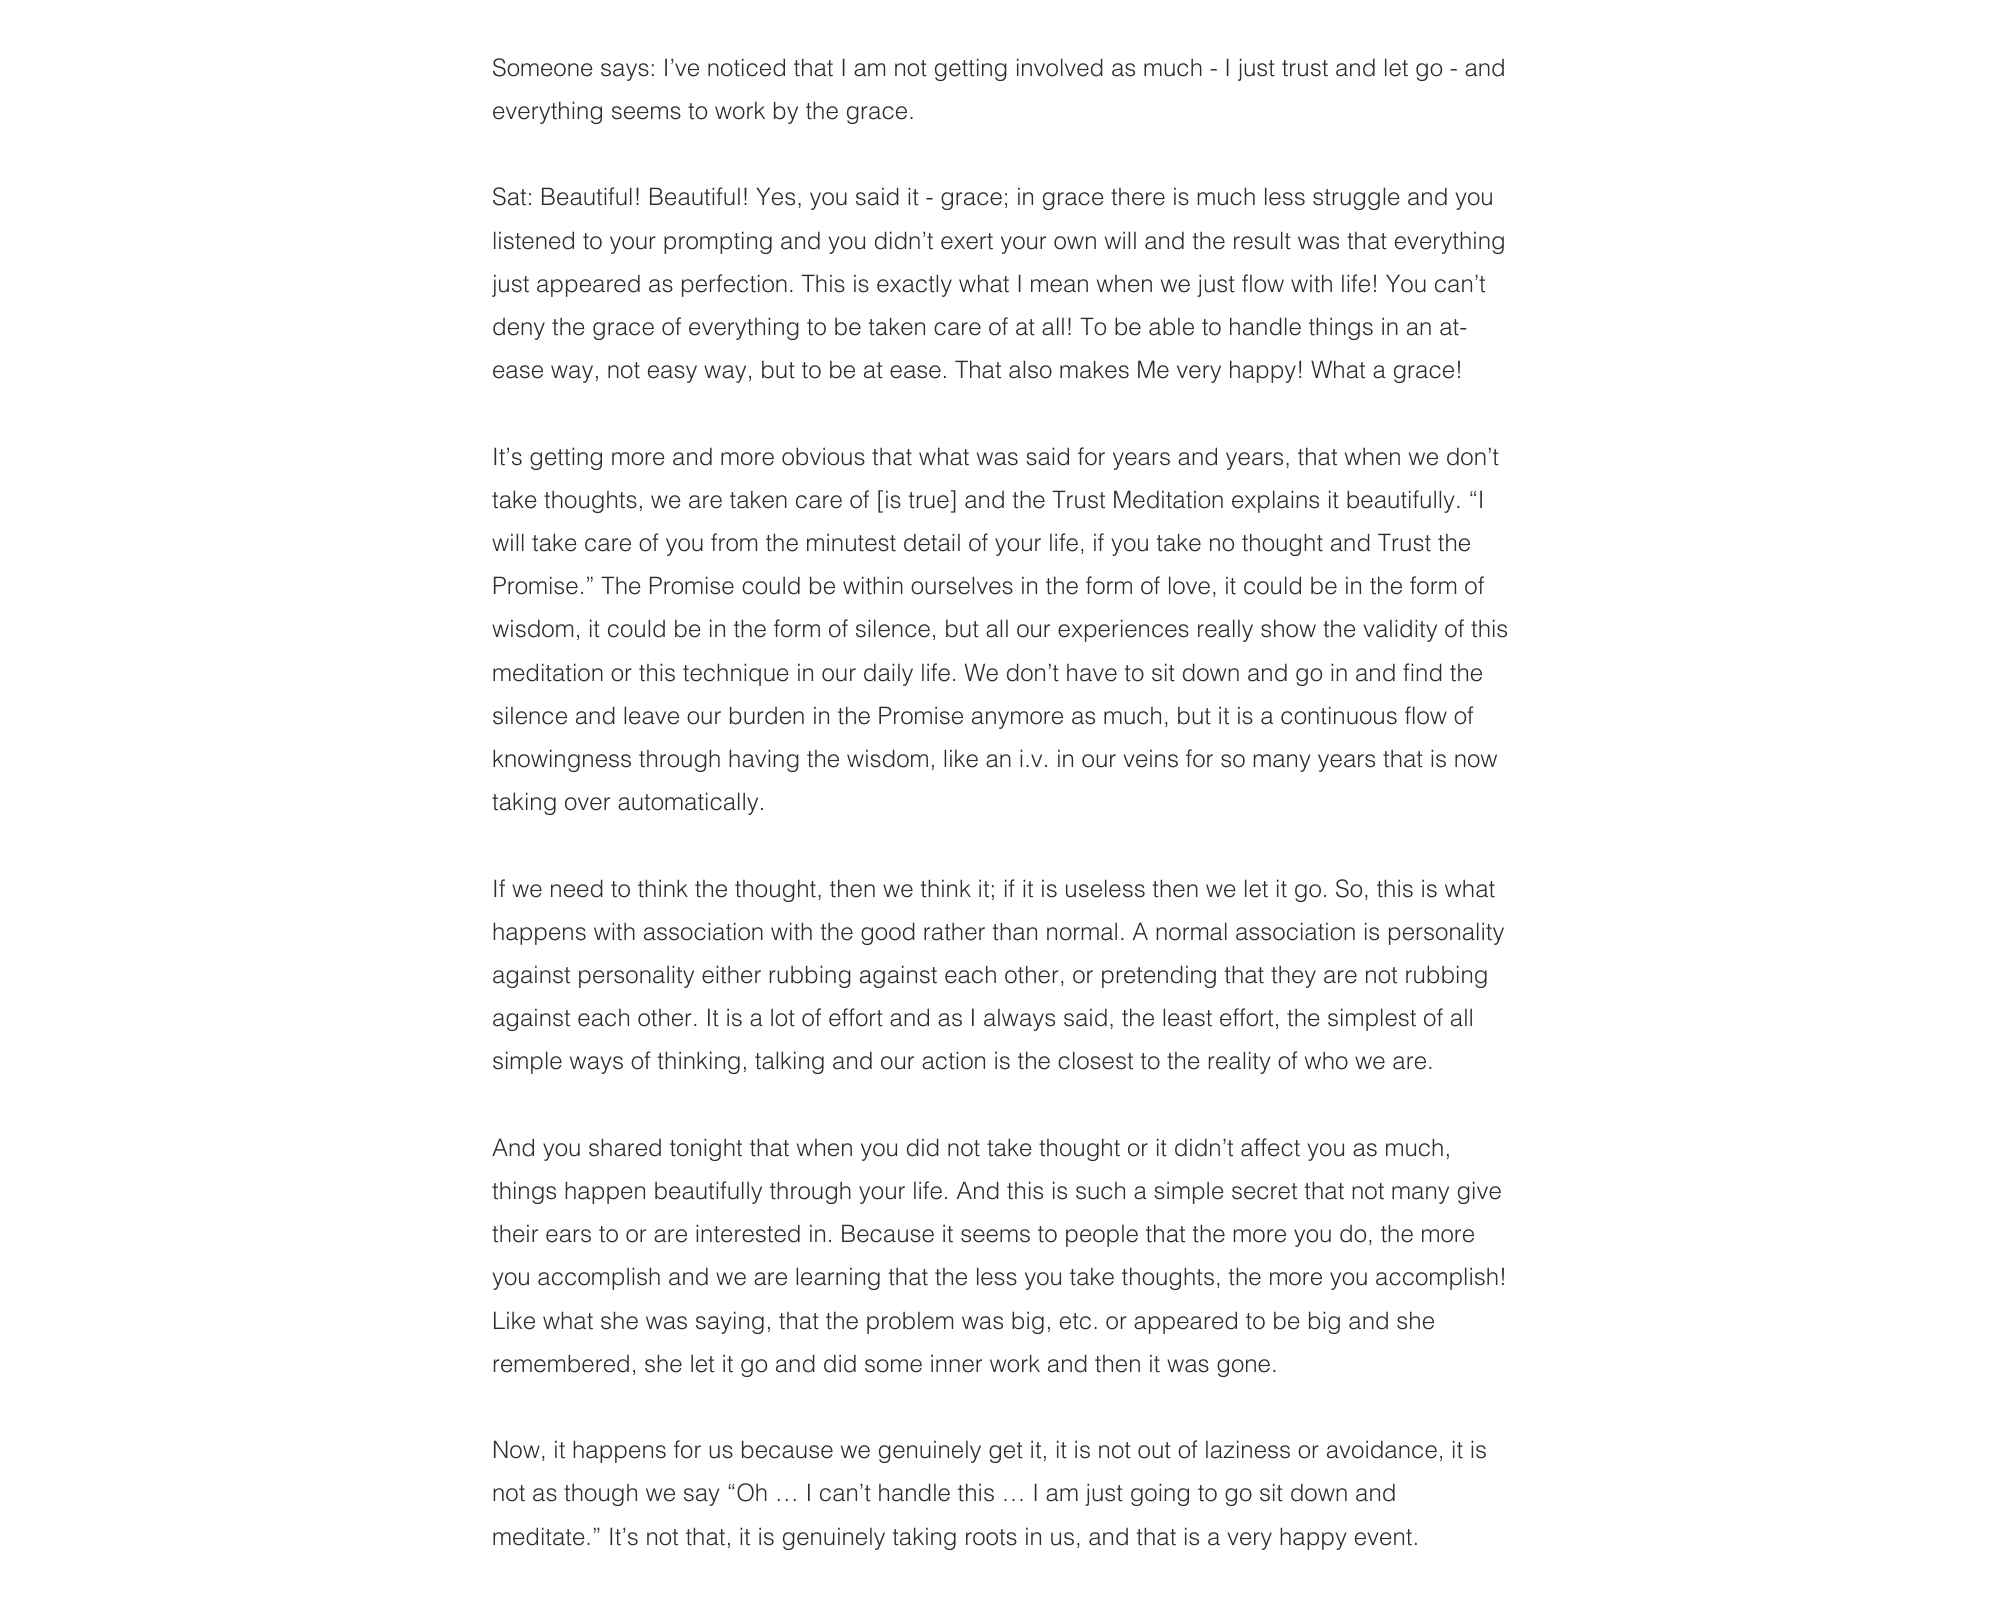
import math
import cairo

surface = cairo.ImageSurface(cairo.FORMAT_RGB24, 2009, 1601)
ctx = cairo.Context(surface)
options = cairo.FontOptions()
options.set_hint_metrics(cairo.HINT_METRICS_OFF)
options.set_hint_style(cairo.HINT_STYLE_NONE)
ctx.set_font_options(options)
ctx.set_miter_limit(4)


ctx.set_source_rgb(1, 1, 1)
ctx.paint()
ctx.select_font_face("helvetica Light")
ctx.set_font_size(24)
ctx.set_source_rgb(0.184, 0.18, 0.18)
ctx.move_to(492, 76)
ctx.show_text("Someone says: I’ve noticed that I am not getting involved as much - I just trust and let go - and")
ctx.move_to(492, 119)
ctx.show_text("everything seems to work by the grace.")
ctx.move_to(492, 205)
ctx.show_text("Sat: Beautiful! Beautiful! Yes, you said it - grace; in grace there is much less struggle and you")
ctx.move_to(492, 249)
ctx.show_text("listened to your prompting and you didn’t exert your own will and the result was that everything")
ctx.move_to(492, 292)
ctx.show_text("just appeared as perfection. This is exactly what I mean when we just flow with life! You can’t")
ctx.move_to(492, 335)
ctx.show_text("deny the grace of everything to be taken care of at all! To be able to handle things in an at-")
ctx.move_to(492, 378)
ctx.show_text("ease way, not easy way, but to be at ease. That also makes Me very happy! What a grace!")
ctx.move_to(492, 465)
ctx.show_text("It’s getting more and more obvious that what was said for years and years, that when we don’t")
ctx.move_to(492, 508)
ctx.show_text("take thoughts, we are taken care of [is true] and the Trust Meditation explains it beautifully. “I")
ctx.move_to(492, 551)
ctx.show_text("will take care of you from the minutest detail of your life, if you take no thought and Trust the")
ctx.move_to(492, 594)
ctx.show_text("Promise.” The Promise could be within ourselves in the form of love, it could be in the form of")
ctx.move_to(492, 637)
ctx.show_text("wisdom, it could be in the form of silence, but all our experiences really show the validity of this")
ctx.move_to(492, 681)
ctx.show_text("meditation or this technique in our daily life. We don’t have to sit down and go in and find the")
ctx.move_to(492, 724)
ctx.show_text("silence and leave our burden in the Promise anymore as much, but it is a continuous flow of")
ctx.move_to(492, 767)
ctx.show_text("knowingness through having the wisdom, like an i.v. in our veins for so many years that is now")
ctx.move_to(492, 810)
ctx.show_text("taking over automatically.")
ctx.move_to(492, 897)
ctx.show_text("If we need to think the thought, then we think it; if it is useless then we let it go. So, this is what")
ctx.move_to(492, 940)
ctx.show_text("happens with association with the good rather than normal. A normal association is personality")
ctx.move_to(492, 983)
ctx.show_text("against personality either rubbing against each other, or pretending that they are not rubbing")
ctx.move_to(492, 1026)
ctx.show_text("against each other. It is a lot of effort and as I always said, the least effort, the simplest of all")
ctx.move_to(492, 1069)
ctx.show_text("simple ways of thinking, talking and our action is the closest to the reality of who we are.")
ctx.move_to(492, 1156)
ctx.show_text("And you shared tonight that when you did not take thought or it didn’t affect you as much,")
ctx.move_to(492, 1199)
ctx.show_text("things happen beautifully through your life. And this is such a simple secret that not many give")
ctx.move_to(492, 1242)
ctx.show_text("their ears to or are interested in. Because it seems to people that the more you do, the more")
ctx.move_to(492, 1285)
ctx.show_text("you accomplish and we are learning that the less you take thoughts, the more you accomplish!")
ctx.move_to(492, 1329)
ctx.show_text("Like what she was saying, that the problem was big, etc. or appeared to be big and she")
ctx.move_to(492, 1372)
ctx.show_text("remembered, she let it go and did some inner work and then it was gone.")
ctx.move_to(492, 1458)
ctx.show_text("Now, it happens for us because we genuinely get it, it is not out of laziness or avoidance, it is")
ctx.move_to(492, 1501)
ctx.show_text("not as though we say “Oh … I can’t handle this … I am just going to go sit down and")
ctx.move_to(492, 1545)
ctx.show_text("meditate.” It’s not that, it is genuinely taking roots in us, and that is a very happy event.")
surface.write_to_png("page.png")
